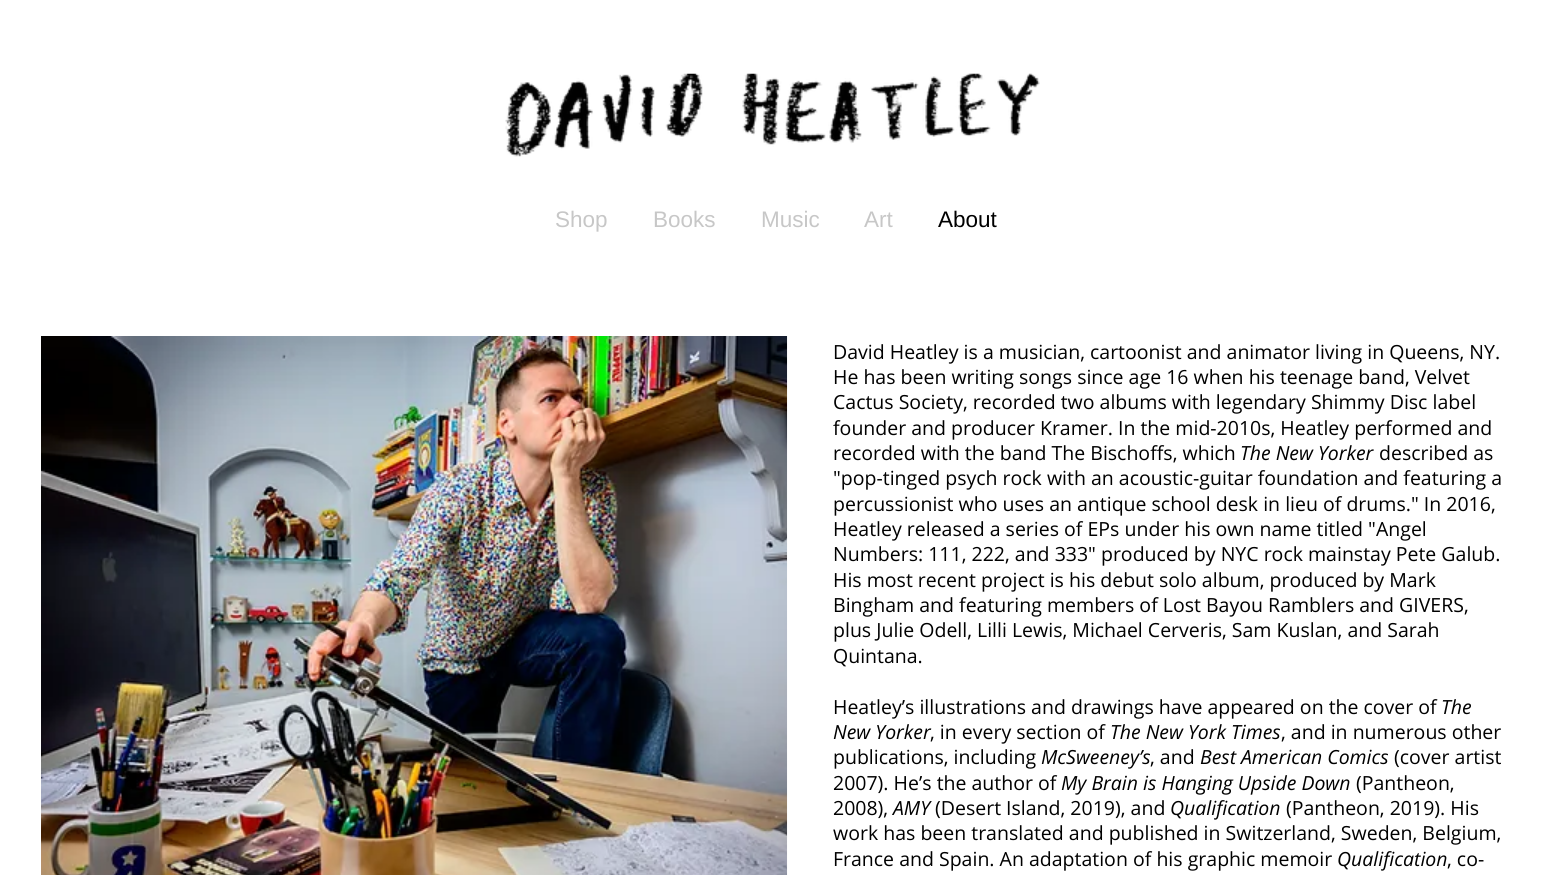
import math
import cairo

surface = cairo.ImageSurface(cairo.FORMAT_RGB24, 1550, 875)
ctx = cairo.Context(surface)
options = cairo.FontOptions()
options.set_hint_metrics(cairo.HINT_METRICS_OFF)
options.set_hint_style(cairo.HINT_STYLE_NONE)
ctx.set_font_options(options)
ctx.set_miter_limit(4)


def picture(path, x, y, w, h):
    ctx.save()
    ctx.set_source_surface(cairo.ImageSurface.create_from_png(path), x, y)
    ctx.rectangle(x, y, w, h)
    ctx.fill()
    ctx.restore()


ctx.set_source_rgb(1, 1, 1)
ctx.paint()
picture("img1.png", 505, 73, 535, 84)
ctx.select_font_face("Liberation Sans")
ctx.set_font_size(22.5)
ctx.set_source_rgb(0.78, 0.78, 0.78)
ctx.move_to(555, 227)
ctx.show_text("Shop")
ctx.move_to(653, 227)
ctx.show_text("Books")
ctx.move_to(761, 227)
ctx.show_text("Music")
ctx.move_to(864, 227)
ctx.show_text("Art")
ctx.set_source_rgb(0, 0, 0)
ctx.move_to(938, 227)
ctx.show_text("About")
picture("img2.png", 41, 336, 747, 539)
ctx.select_font_face("Open Sans")
ctx.set_font_size(19.5)
ctx.move_to(833, 359)
ctx.show_text("David Heatley is a musician, cartoonist and animator living in Queens, NY.")
ctx.move_to(833, 384)
ctx.show_text("He has been writing songs since age 16 when his teenage band, Velvet")
ctx.move_to(833, 409)
ctx.show_text("Cactus Society, recorded two albums with legendary Shimmy Disc label")
ctx.move_to(833, 435)
ctx.show_text("founder and producer Kramer. In the mid-2010s, Heatley performed and")
ctx.move_to(833, 460)
ctx.show_text("recorded with the band The Bischoffs, which")
ctx.select_font_face("Open Sans", cairo.FONT_SLANT_ITALIC)
ctx.move_to(1240, 460)
ctx.show_text("The New Yorker")
ctx.select_font_face("Open Sans")
ctx.move_to(1379, 460)
ctx.show_text("described as")
ctx.move_to(833, 485)
ctx.show_text("\"pop-tinged psych rock with an acoustic-guitar foundation and featuring a")
ctx.move_to(833, 511)
ctx.show_text("percussionist who uses an antique school desk in lieu of drums.\" In 2016,")
ctx.move_to(833, 536)
ctx.show_text("Heatley released a series of EPs under his own name titled \"Angel")
ctx.move_to(833, 561)
ctx.show_text("Numbers: 111, 222, and 333\" produced by NYC rock mainstay Pete Galub.")
ctx.move_to(833, 587)
ctx.show_text("His most recent project is his debut solo album, produced by Mark")
ctx.move_to(833, 612)
ctx.show_text("Bingham and featuring members of Lost Bayou Ramblers and GIVERS,")
ctx.move_to(833, 637)
ctx.show_text("plus Julie Odell, Lilli Lewis, Michael Cerveris, Sam Kuslan, and Sarah")
ctx.move_to(833, 663)
ctx.show_text("Quintana.")
ctx.move_to(833, 714)
ctx.show_text("Heatley’s illustrations and drawings have appeared on the cover of")
ctx.select_font_face("Open Sans", cairo.FONT_SLANT_ITALIC)
ctx.move_to(1441, 714)
ctx.show_text("The")
ctx.move_to(833, 739)
ctx.show_text("New Yorker")
ctx.select_font_face("Open Sans")
ctx.move_to(930, 739)
ctx.show_text(", in every section of")
ctx.select_font_face("Open Sans", cairo.FONT_SLANT_ITALIC)
ctx.move_to(1110, 739)
ctx.show_text("The New York Times")
ctx.select_font_face("Open Sans")
ctx.move_to(1281, 739)
ctx.show_text(", and in numerous other")
ctx.move_to(833, 764)
ctx.show_text("publications, including")
ctx.select_font_face("Open Sans", cairo.FONT_SLANT_ITALIC)
ctx.move_to(1041, 764)
ctx.show_text("McSweeney’s")
ctx.select_font_face("Open Sans")
ctx.move_to(1150, 764)
ctx.show_text(", and")
ctx.select_font_face("Open Sans", cairo.FONT_SLANT_ITALIC)
ctx.move_to(1200, 764)
ctx.show_text("Best American Comics")
ctx.select_font_face("Open Sans")
ctx.move_to(1394, 764)
ctx.show_text("(cover artist")
ctx.move_to(833, 790)
ctx.show_text("2007). He’s the author of")
ctx.select_font_face("Open Sans", cairo.FONT_SLANT_ITALIC)
ctx.move_to(1061, 790)
ctx.show_text("My Brain is Hanging Upside Down")
ctx.select_font_face("Open Sans")
ctx.move_to(1356, 790)
ctx.show_text("(Pantheon,")
ctx.move_to(833, 815)
ctx.show_text("2008),")
ctx.select_font_face("Open Sans", cairo.FONT_SLANT_ITALIC)
ctx.move_to(893, 815)
ctx.show_text("AMY")
ctx.select_font_face("Open Sans")
ctx.move_to(935, 815)
ctx.show_text("(Desert Island, 2019), and")
ctx.select_font_face("Open Sans", cairo.FONT_SLANT_ITALIC)
ctx.move_to(1170, 815)
ctx.show_text("Qualification")
ctx.select_font_face("Open Sans")
ctx.move_to(1286, 815)
ctx.show_text("(Pantheon, 2019). His")
ctx.move_to(833, 840)
ctx.show_text("work has been translated and published in Switzerland, Sweden, Belgium,")
ctx.move_to(833, 866)
ctx.show_text("France and Spain. An adaptation of his graphic memoir")
ctx.select_font_face("Open Sans", cairo.FONT_SLANT_ITALIC)
ctx.move_to(1337, 866)
ctx.show_text("Qualification")
ctx.select_font_face("Open Sans")
ctx.move_to(1447, 866)
ctx.show_text(", co-")
surface.write_to_png("page.png")
